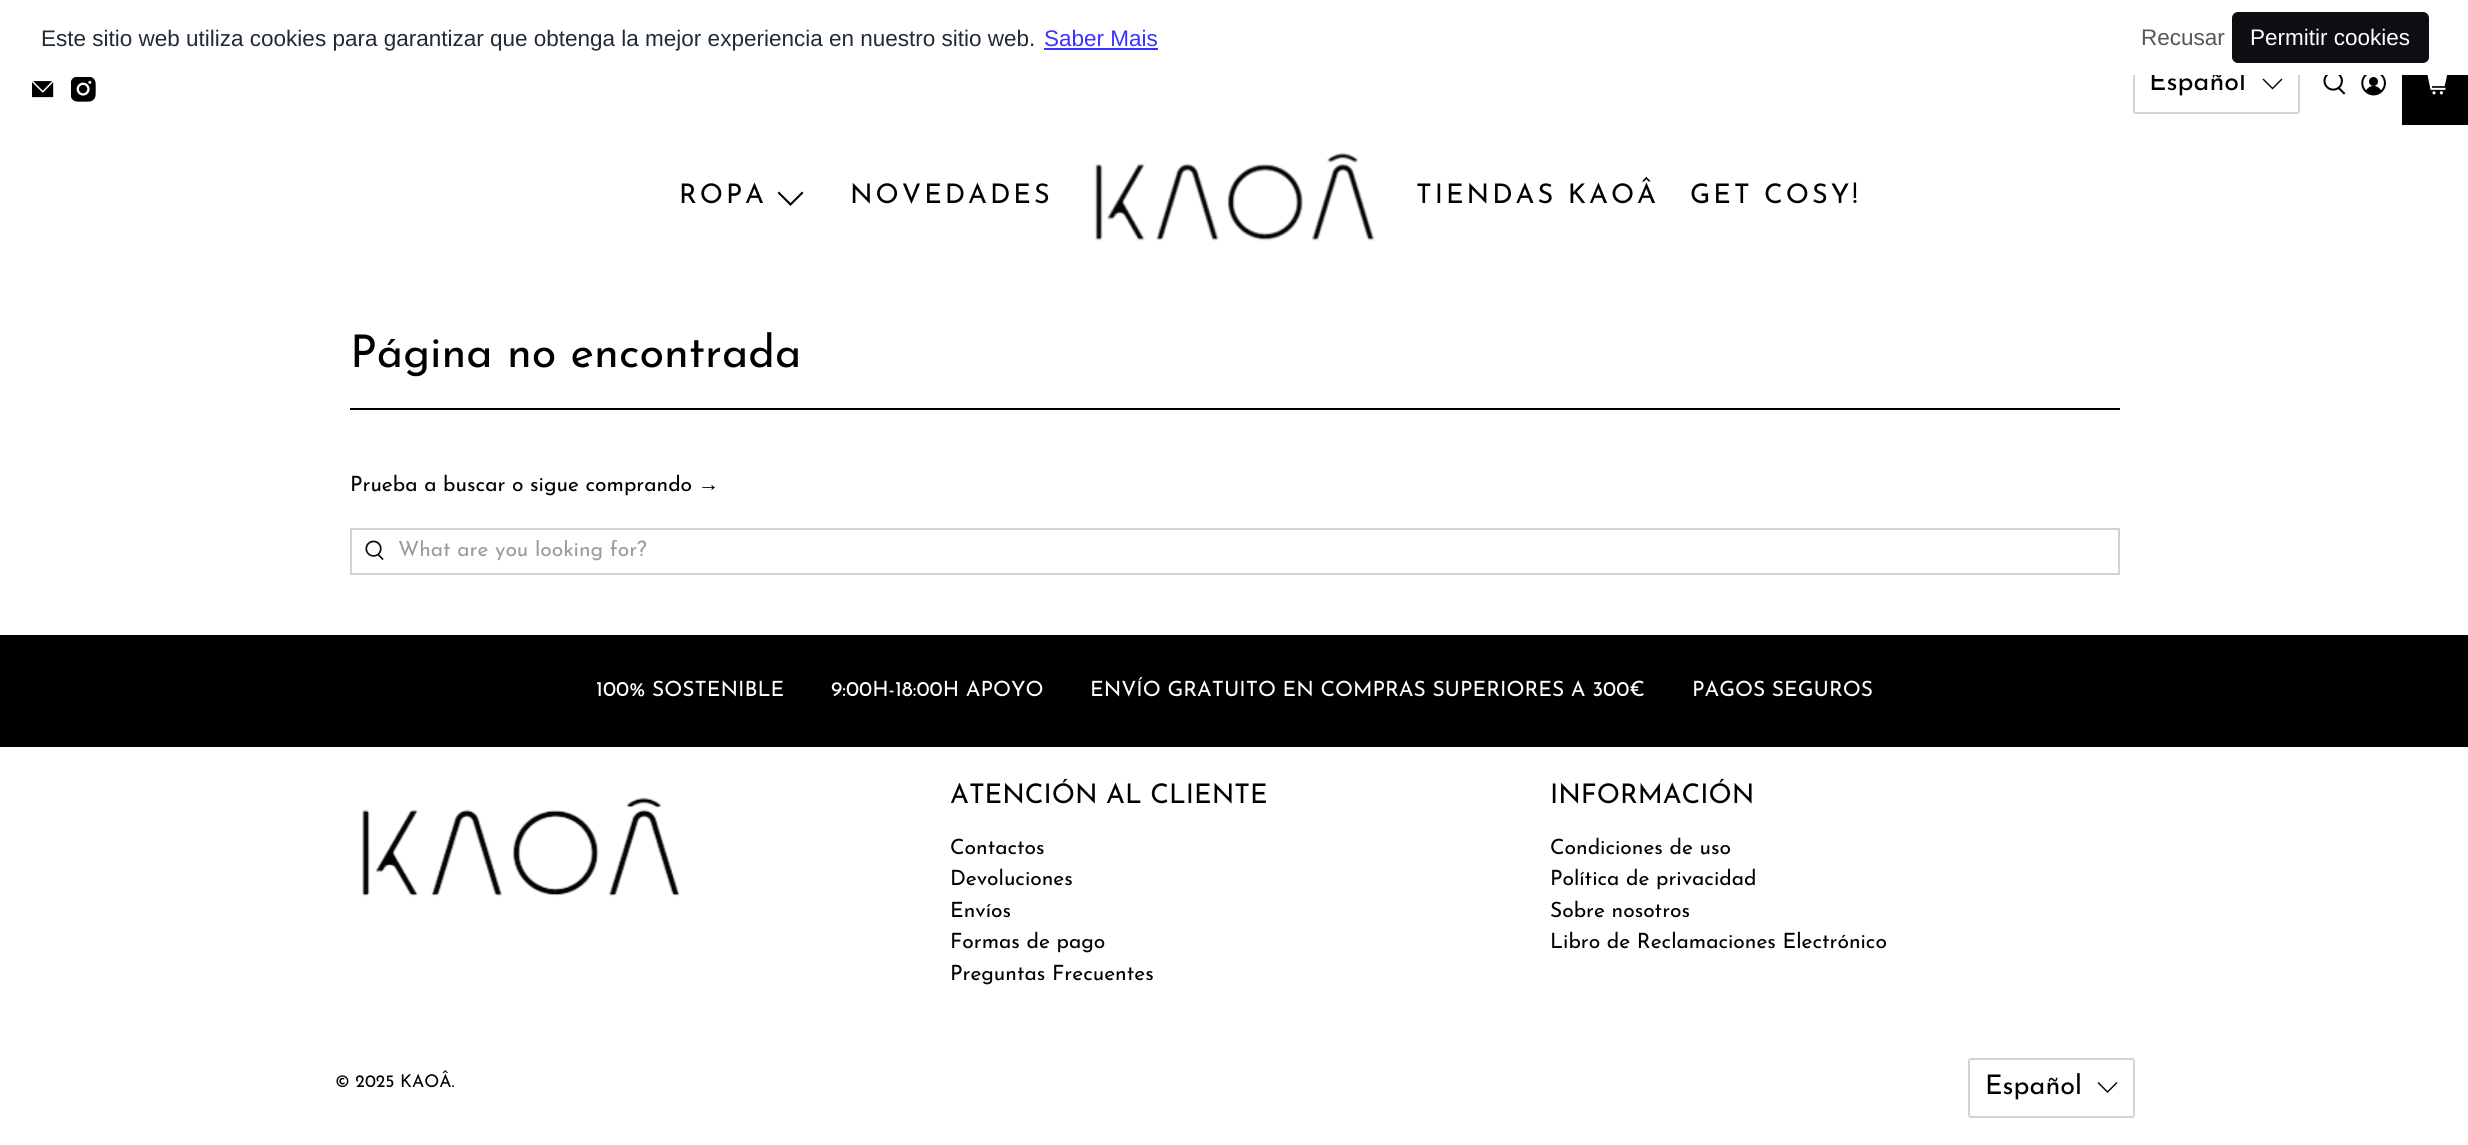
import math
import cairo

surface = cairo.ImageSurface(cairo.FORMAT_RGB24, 2468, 1145)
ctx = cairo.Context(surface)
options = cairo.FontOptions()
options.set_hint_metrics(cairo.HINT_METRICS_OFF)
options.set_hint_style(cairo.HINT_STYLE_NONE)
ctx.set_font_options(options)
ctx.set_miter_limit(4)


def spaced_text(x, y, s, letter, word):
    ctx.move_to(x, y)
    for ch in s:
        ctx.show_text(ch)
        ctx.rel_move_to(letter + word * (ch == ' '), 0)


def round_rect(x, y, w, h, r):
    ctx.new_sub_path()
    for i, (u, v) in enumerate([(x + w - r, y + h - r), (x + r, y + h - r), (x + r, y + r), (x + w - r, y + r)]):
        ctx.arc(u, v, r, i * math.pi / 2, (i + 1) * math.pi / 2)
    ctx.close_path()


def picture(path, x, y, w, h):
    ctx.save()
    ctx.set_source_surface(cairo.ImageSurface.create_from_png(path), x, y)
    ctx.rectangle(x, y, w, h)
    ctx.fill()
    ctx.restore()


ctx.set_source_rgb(1, 1, 1)
ctx.paint()
round_rect(2134, 55, 165, 58, 2)
ctx.set_source_rgb(0.827, 0.827, 0.827)
ctx.stroke()
ctx.select_font_face("Josefin Sans Thin")
ctx.set_font_size(27)
ctx.set_source_rgb(0, 0, 0)
ctx.move_to(2149, 90)
ctx.show_text("Español")
ctx.set_source_rgb(1, 1, 1)
ctx.rectangle(2133, 54, 167, 21)
ctx.fill()
ctx.select_font_face("Liberation Sans")
ctx.set_font_size(22.5)
ctx.set_source_rgb(0.129, 0.169, 0.212)
ctx.move_to(41, 46)
ctx.show_text("Este sitio web utiliza cookies para garantizar que obtenga la mejor experiencia en nuestro sitio web.")
ctx.set_source_rgb(0.231, 0.2, 0.992)
ctx.move_to(1044, 46)
ctx.show_text("Saber Mais")
ctx.rectangle(1044, 48, 114, 2)
ctx.fill()
ctx.set_source_rgb(0.341, 0.341, 0.341)
ctx.move_to(2141, 45)
ctx.show_text("Recusar")
ctx.set_source_rgb(0.051, 0.051, 0.071)
round_rect(2232, 12, 197, 51, 6)
ctx.fill()
ctx.set_source_rgb(1, 1, 1)
ctx.move_to(2250, 45)
ctx.show_text("Permitir cookies")
picture("img1.png", 32, 81, 22, 17)
picture("img2.png", 71, 77, 25, 25)
ctx.set_source_rgb(0, 0, 0)
ctx.new_path()
ctx.move_to(2272.5, 89.5)
ctx.line_to(2262.5, 79.5)
ctx.line_to(2263.5, 78.5)
ctx.line_to(2272.5, 87.5)
ctx.line_to(2281.5, 78.5)
ctx.line_to(2282.5, 79.5)
ctx.close_path()
ctx.fill()
picture("img3.png", 2323, 75, 23, 20)
picture("img4.png", 2361, 75, 25, 21)
ctx.rectangle(2402, 75, 66, 50)
ctx.fill()
picture("img5.png", 2427, 75, 20, 20)
ctx.select_font_face("Josefin Sans Thin")
ctx.set_font_size(27)
spaced_text(679, 203, "ROPA", 3, 0)
ctx.new_path()
ctx.move_to(790.5, 206)
ctx.line_to(777.5, 193)
ctx.line_to(779, 191.5)
ctx.line_to(790.5, 203)
ctx.line_to(802, 191.5)
ctx.line_to(803.5, 193)
ctx.close_path()
ctx.fill()
spaced_text(850, 203, "NOVEDADES", 3, 0)
picture("img6.png", 1095, 152, 280, 89)
spaced_text(1416, 203, "TIENDAS KAOÂ", 3, 0)
spaced_text(1690, 203, "GET COSY!", 3, 0)
ctx.set_font_size(45)
ctx.move_to(350, 367)
ctx.show_text("Página no encontrada")
ctx.rectangle(350, 408, 1770, 2)
ctx.fill()
ctx.set_font_size(21)
ctx.move_to(350, 491)
ctx.show_text("Prueba a buscar o sigue comprando")
ctx.select_font_face("Liberation Sans")
ctx.move_to(698, 491)
ctx.show_text("→")
ctx.rectangle(351, 529, 1768, 45)
ctx.set_source_rgb(0.827, 0.827, 0.827)
ctx.stroke()
picture("img7.png", 365, 540, 19, 20)
ctx.save()
ctx.rectangle(399, 540, 1707, 23)
ctx.clip()
ctx.select_font_face("Josefin Sans Thin")
ctx.set_source_rgb(0.608, 0.608, 0.608)
ctx.move_to(398, 556)
ctx.show_text("What are you looking for?")
ctx.restore()
ctx.set_source_rgb(0, 0, 0)
ctx.rectangle(0, 635, 2468, 112)
ctx.fill()
ctx.select_font_face("Josefin Sans Thin")
ctx.set_source_rgb(1, 1, 1)
ctx.move_to(596, 696)
ctx.show_text("100% SOSTENIBLE")
ctx.move_to(831, 696)
ctx.show_text("9:00H-18:00H APOYO")
ctx.move_to(1090, 696)
ctx.show_text("ENVÍO GRATUITO EN COMPRAS SUPERIORES A 300€")
ctx.move_to(1692, 696)
ctx.show_text("PAGOS SEGUROS")
picture("img8.png", 362, 797, 318, 100)
ctx.set_font_size(27)
ctx.set_source_rgb(0, 0, 0)
ctx.move_to(950, 803)
ctx.show_text("ATENCIÓN AL CLIENTE")
ctx.set_font_size(21)
ctx.move_to(950, 854)
ctx.show_text("Contactos")
ctx.move_to(950, 885)
ctx.show_text("Devoluciones")
ctx.move_to(950, 917)
ctx.show_text("Envíos")
ctx.move_to(950, 948)
ctx.show_text("Formas de pago")
ctx.move_to(950, 980)
ctx.show_text("Preguntas Frecuentes")
ctx.set_font_size(27)
ctx.move_to(1550, 803)
ctx.show_text("INFORMACIÓN")
ctx.set_font_size(21)
ctx.move_to(1550, 854)
ctx.show_text("Condiciones de uso")
ctx.move_to(1550, 885)
ctx.show_text("Política de privacidad")
ctx.move_to(1550, 917)
ctx.show_text("Sobre nosotros")
ctx.move_to(1550, 948)
ctx.show_text("Libro de Reclamaciones Electrónico")
ctx.set_font_size(17.5)
ctx.move_to(335, 1087)
ctx.show_text("© 2025 KAOÂ.")
round_rect(1969, 1059, 165, 58, 2)
ctx.set_source_rgb(0.827, 0.827, 0.827)
ctx.stroke()
ctx.set_font_size(27)
ctx.set_source_rgb(0, 0, 0)
ctx.move_to(1985, 1094)
ctx.show_text("Español")
ctx.new_path()
ctx.move_to(2107.5, 1093)
ctx.line_to(2097.5, 1083)
ctx.line_to(2098.5, 1082)
ctx.line_to(2107.5, 1091)
ctx.line_to(2116.5, 1082)
ctx.line_to(2117.5, 1083)
ctx.close_path()
ctx.fill()
surface.write_to_png("page.png")
